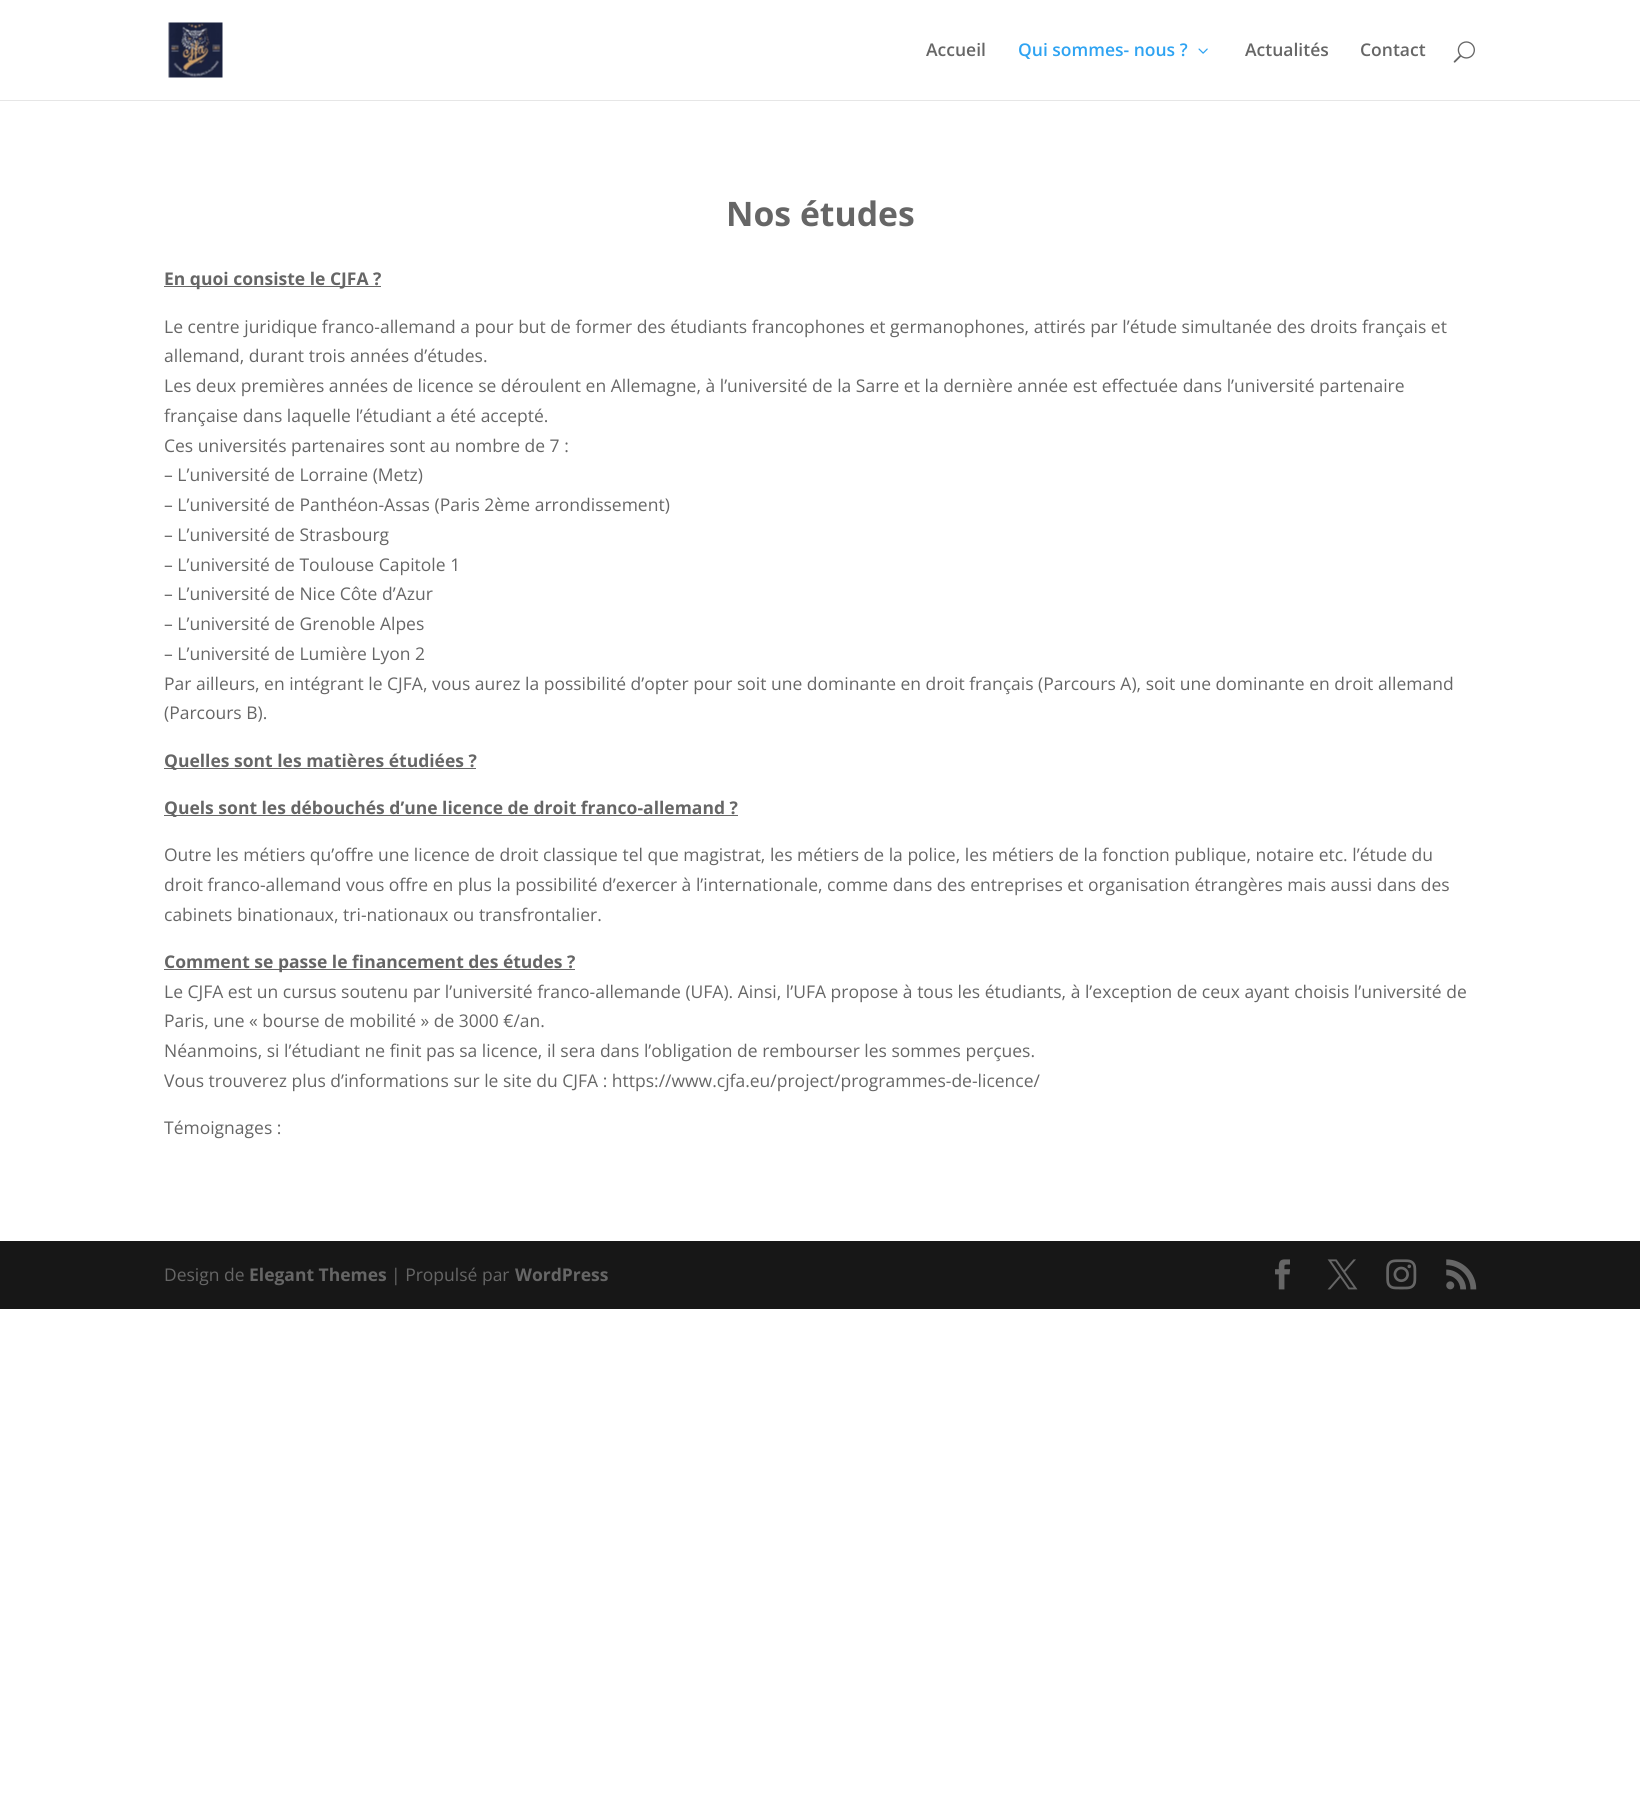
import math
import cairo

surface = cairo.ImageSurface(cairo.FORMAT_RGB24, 1640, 1807)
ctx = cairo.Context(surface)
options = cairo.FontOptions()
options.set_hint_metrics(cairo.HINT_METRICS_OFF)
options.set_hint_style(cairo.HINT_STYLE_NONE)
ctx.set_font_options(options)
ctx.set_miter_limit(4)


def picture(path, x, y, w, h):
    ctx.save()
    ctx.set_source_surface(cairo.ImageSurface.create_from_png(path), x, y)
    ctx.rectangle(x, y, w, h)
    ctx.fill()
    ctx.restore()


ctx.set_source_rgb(1, 1, 1)
ctx.paint()
ctx.set_source_rgb(0.902, 0.902, 0.902)
ctx.rectangle(0, 100, 1640, 1)
ctx.fill()
picture("img1.png", 168, 22, 55, 56)
ctx.select_font_face("Open Sans SemiBold")
ctx.set_font_size(17.5)
ctx.set_source_rgb(0.4, 0.4, 0.4)
ctx.move_to(926, 56)
ctx.show_text("Accueil")
ctx.set_source_rgb(0.18, 0.639, 0.949)
ctx.move_to(1018, 56)
ctx.show_text("Qui sommes- nous ?")
picture("img2.png", 1198, 48, 10, 6)
ctx.set_source_rgb(0.4, 0.4, 0.4)
ctx.move_to(1245, 56)
ctx.show_text("Actualités")
ctx.move_to(1360, 56)
ctx.show_text("Contact")
picture("img3.png", 1453, 41, 22, 22)
ctx.select_font_face("Open Sans", cairo.FONT_SLANT_NORMAL, cairo.FONT_WEIGHT_BOLD)
ctx.set_font_size(33.75)
ctx.move_to(726, 226)
ctx.show_text("Nos études")
ctx.rectangle(164, 286, 217, 1)
ctx.fill()
ctx.set_font_size(17.5)
ctx.move_to(164, 285)
ctx.show_text("En quoi consiste le CJFA ?")
ctx.select_font_face("Open Sans")
ctx.move_to(164, 333)
ctx.show_text("Le centre juridique franco-allemand a pour but de former des étudiants francophones et germanophones, attirés par l’étude simultanée des droits français et")
ctx.move_to(164, 362)
ctx.show_text("allemand, durant trois années d’études.")
ctx.move_to(164, 392)
ctx.show_text("Les deux premières années de licence se déroulent en Allemagne, à l’université de la Sarre et la dernière année est effectuée dans l’université partenaire")
ctx.move_to(164, 422)
ctx.show_text("française dans laquelle l’étudiant a été accepté.")
ctx.move_to(164, 452)
ctx.show_text("Ces universités partenaires sont au nombre de 7 :")
ctx.move_to(164, 481)
ctx.show_text("– L’université de Lorraine (Metz)")
ctx.move_to(164, 511)
ctx.show_text("– L’université de Panthéon-Assas (Paris 2ème arrondissement)")
ctx.move_to(164, 541)
ctx.show_text("– L’université de Strasbourg")
ctx.move_to(164, 571)
ctx.show_text("– L’université de Toulouse Capitole 1")
ctx.move_to(164, 600)
ctx.show_text("– L’université de Nice Côte d’Azur")
ctx.move_to(164, 630)
ctx.show_text("– L’université de Grenoble Alpes")
ctx.move_to(164, 660)
ctx.show_text("– L’université de Lumière Lyon 2")
ctx.move_to(164, 690)
ctx.show_text("Par ailleurs, en intégrant le CJFA, vous aurez la possibilité d’opter pour soit une dominante en droit français (Parcours A), soit une dominante en droit allemand")
ctx.move_to(164, 719)
ctx.show_text("(Parcours B).")
ctx.rectangle(164, 768, 312, 1)
ctx.fill()
ctx.select_font_face("Open Sans", cairo.FONT_SLANT_NORMAL, cairo.FONT_WEIGHT_BOLD)
ctx.move_to(164, 767)
ctx.show_text("Quelles sont les matières étudiées ?")
ctx.rectangle(164, 815, 574, 1)
ctx.fill()
ctx.move_to(164, 814)
ctx.show_text("Quels sont les débouchés d’une licence de droit franco-allemand ?")
ctx.select_font_face("Open Sans")
ctx.move_to(164, 861)
ctx.show_text("Outre les métiers qu’offre une licence de droit classique tel que magistrat, les métiers de la police, les métiers de la fonction publique, notaire etc. l’étude du")
ctx.move_to(164, 891)
ctx.show_text("droit franco-allemand vous offre en plus la possibilité d’exercer à l’internationale, comme dans des entreprises et organisation étrangères mais aussi dans des")
ctx.move_to(164, 921)
ctx.show_text("cabinets binationaux, tri-nationaux ou transfrontalier.")
ctx.rectangle(164, 969, 411, 1)
ctx.fill()
ctx.select_font_face("Open Sans", cairo.FONT_SLANT_NORMAL, cairo.FONT_WEIGHT_BOLD)
ctx.move_to(164, 968)
ctx.show_text("Comment se passe le financement des études ?")
ctx.select_font_face("Open Sans")
ctx.move_to(164, 998)
ctx.show_text("Le CJFA est un cursus soutenu par l’université franco-allemande (UFA). Ainsi, l’UFA propose à tous les étudiants, à l’exception de ceux ayant choisis l’université de")
ctx.move_to(164, 1027)
ctx.show_text("Paris, une « bourse de mobilité » de 3000 €/an.")
ctx.move_to(164, 1057)
ctx.show_text("Néanmoins, si l’étudiant ne finit pas sa licence, il sera dans l’obligation de rembourser les sommes perçues.")
ctx.move_to(164, 1087)
ctx.show_text("Vous trouverez plus d’informations sur le site du CJFA : https://www.cjfa.eu/project/programmes-de-licence/")
ctx.move_to(164, 1134)
ctx.show_text("Témoignages :")
ctx.set_source_rgb(0.09, 0.09, 0.09)
ctx.rectangle(0, 1241, 1640, 68)
ctx.fill()
ctx.set_source_rgb(0.4, 0.4, 0.4)
ctx.move_to(164, 1281)
ctx.show_text("Design de")
ctx.select_font_face("Open Sans", cairo.FONT_SLANT_NORMAL, cairo.FONT_WEIGHT_BOLD)
ctx.move_to(249, 1281)
ctx.show_text("Elegant Themes")
ctx.select_font_face("Open Sans")
ctx.move_to(391, 1281)
ctx.show_text("| Propulsé par")
ctx.select_font_face("Open Sans", cairo.FONT_SLANT_NORMAL, cairo.FONT_WEIGHT_BOLD)
ctx.move_to(515, 1281)
ctx.show_text("WordPress")
picture("img4.png", 1275, 1259, 15, 31)
picture("img5.png", 1327, 1259, 31, 31)
picture("img6.png", 1386, 1259, 31, 31)
picture("img7.png", 1446, 1259, 31, 31)
surface.write_to_png("page.png")
